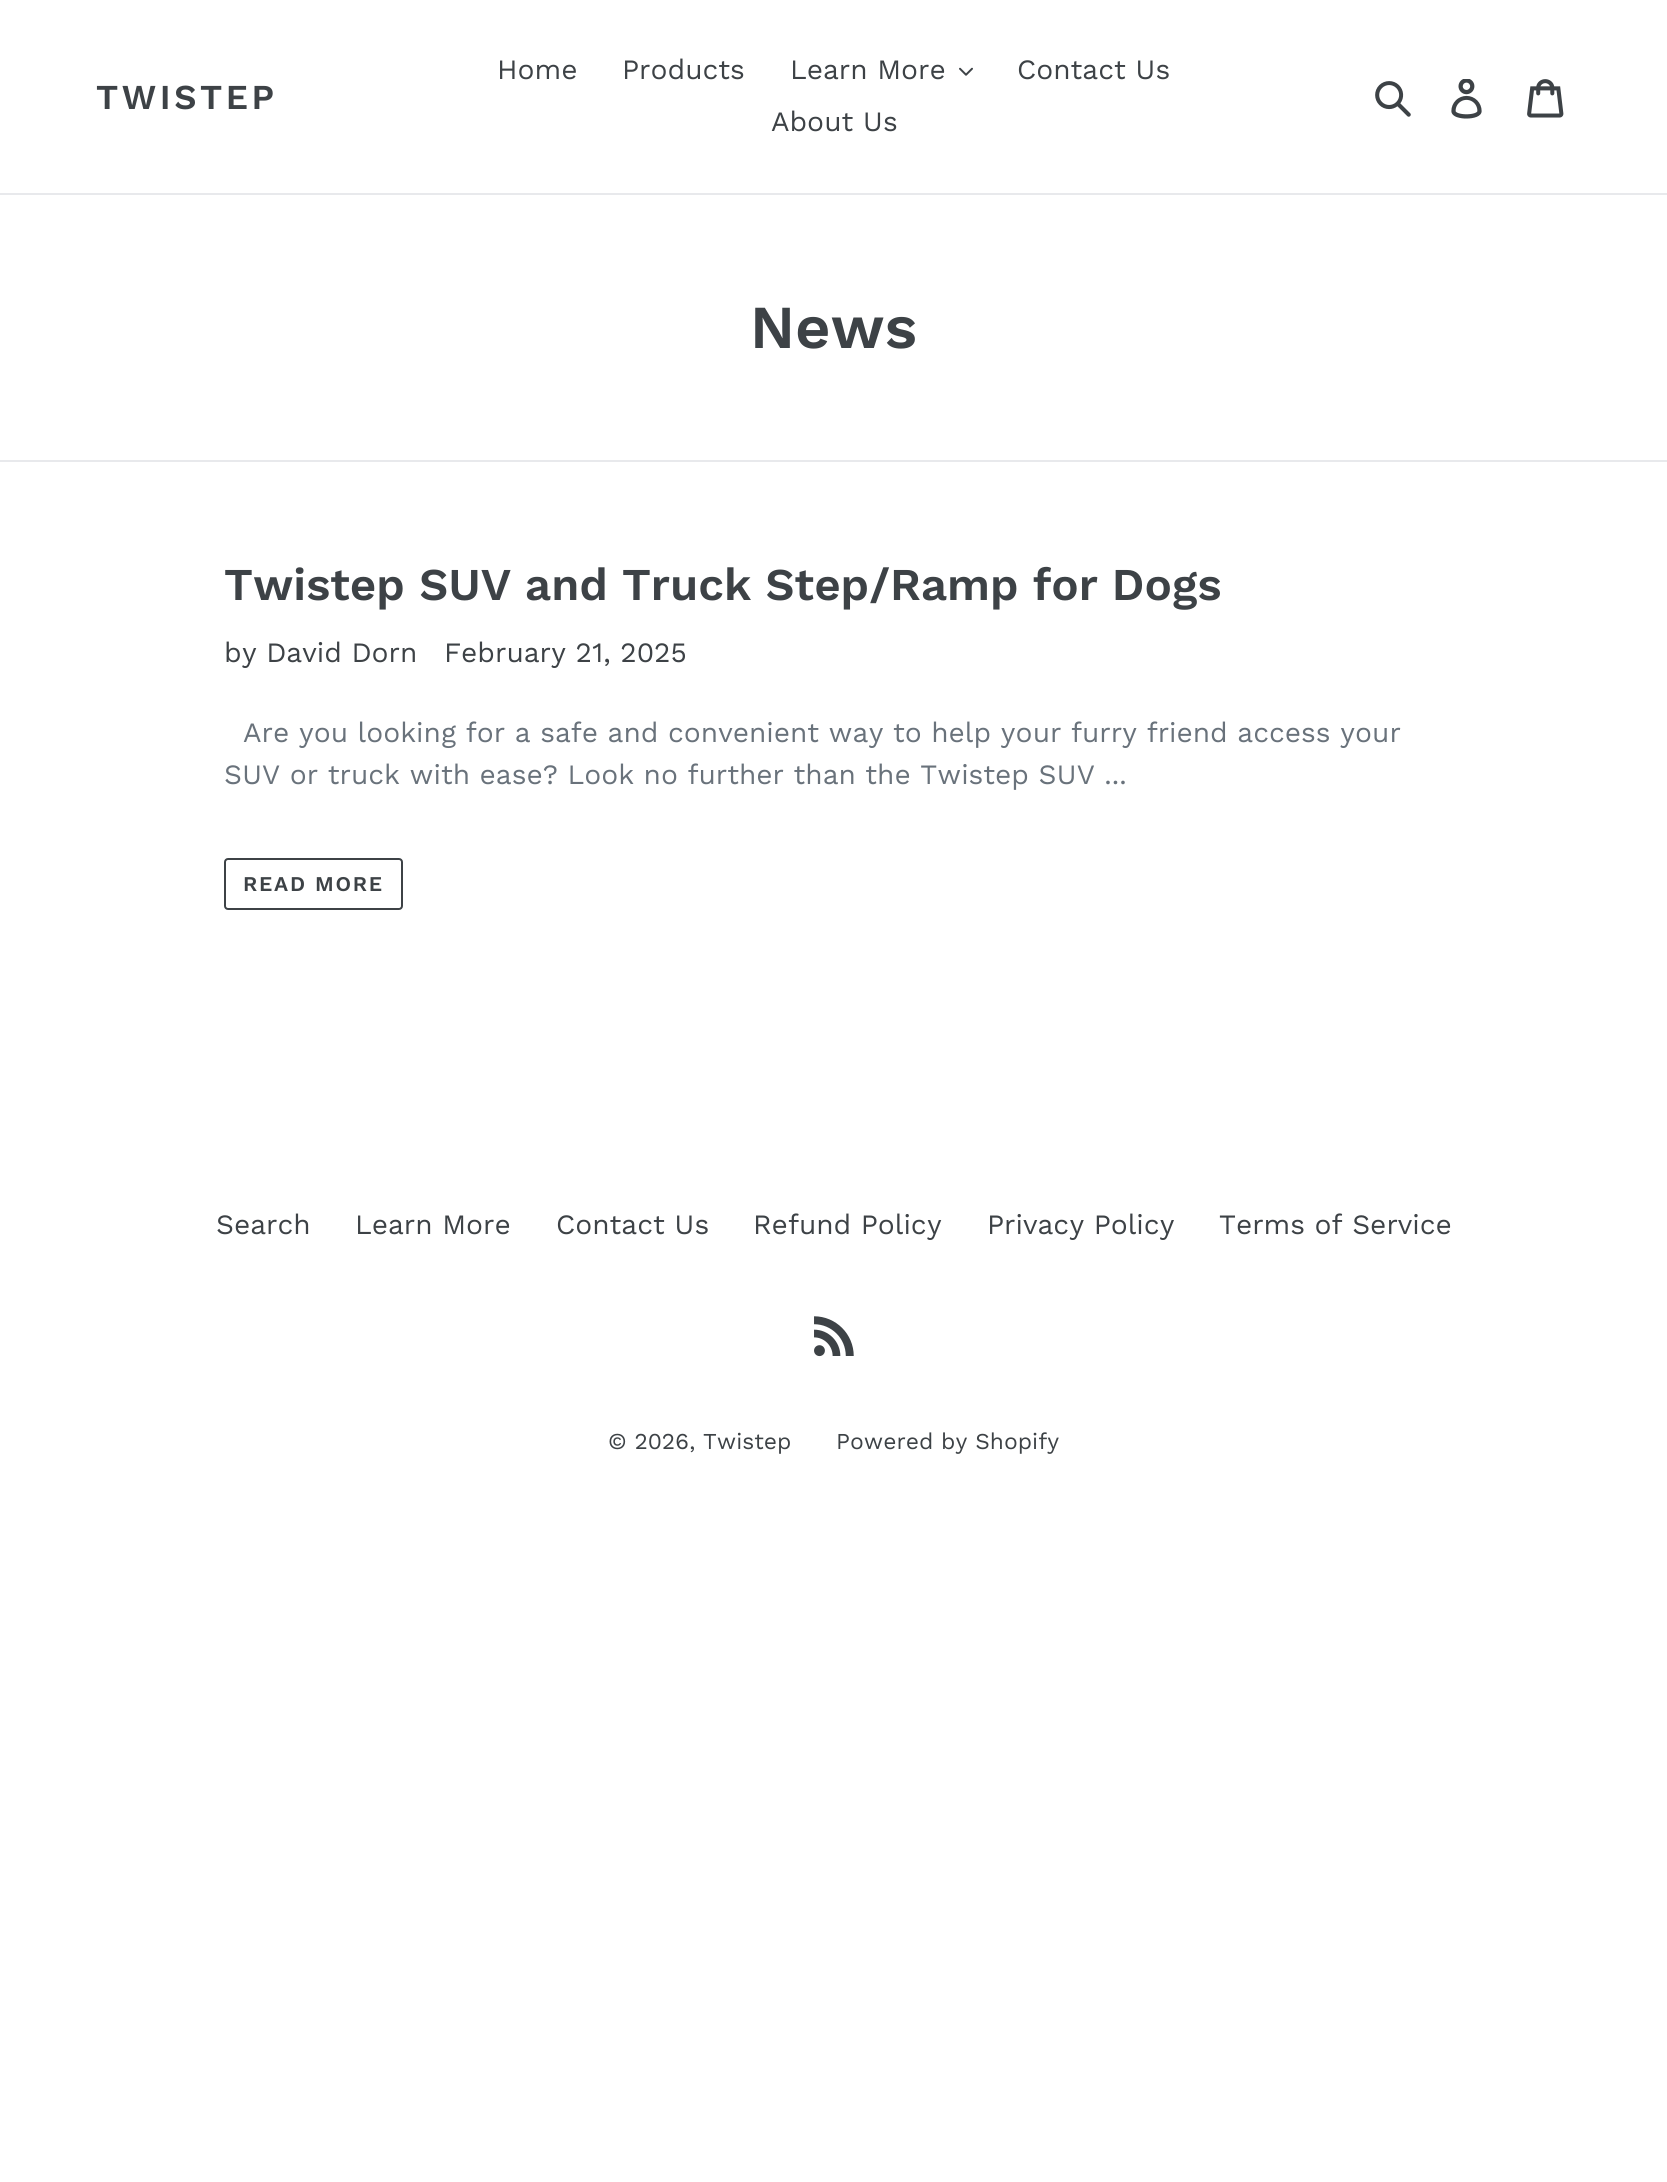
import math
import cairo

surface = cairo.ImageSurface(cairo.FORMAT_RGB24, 1667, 2182)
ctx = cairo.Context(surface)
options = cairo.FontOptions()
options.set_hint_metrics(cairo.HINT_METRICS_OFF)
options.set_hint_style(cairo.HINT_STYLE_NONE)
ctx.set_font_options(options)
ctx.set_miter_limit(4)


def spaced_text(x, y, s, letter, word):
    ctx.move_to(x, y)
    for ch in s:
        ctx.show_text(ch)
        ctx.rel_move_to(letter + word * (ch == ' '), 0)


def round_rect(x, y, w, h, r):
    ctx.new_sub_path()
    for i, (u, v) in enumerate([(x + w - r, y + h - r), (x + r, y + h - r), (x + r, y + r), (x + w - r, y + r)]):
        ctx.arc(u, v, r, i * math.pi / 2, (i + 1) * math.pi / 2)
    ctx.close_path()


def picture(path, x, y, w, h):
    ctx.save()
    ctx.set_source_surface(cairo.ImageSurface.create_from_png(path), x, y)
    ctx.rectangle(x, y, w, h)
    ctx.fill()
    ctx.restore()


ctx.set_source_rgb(1, 1, 1)
ctx.paint()
ctx.set_source_rgb(0.91, 0.914, 0.922)
ctx.rectangle(0, 193, 1667, 2)
ctx.fill()
ctx.select_font_face("Work Sans SemiBold")
ctx.set_font_size(35)
ctx.set_source_rgb(0.239, 0.259, 0.275)
spaced_text(96, 109, "TWISTEP", 3.5, 0)
ctx.select_font_face("Work Sans")
ctx.set_font_size(28)
ctx.move_to(497, 79)
ctx.show_text("Home")
ctx.move_to(622, 79)
ctx.show_text("Products")
ctx.move_to(790, 79)
ctx.show_text("Learn More")
picture("img1.png", 959, 67, 14, 9)
ctx.move_to(1017, 79)
ctx.show_text("Contact Us")
ctx.move_to(771, 131)
ctx.show_text("About Us")
picture("img2.png", 1375, 81, 36, 36)
picture("img3.png", 1451, 79, 31, 40)
picture("img4.png", 1527, 79, 37, 39)
ctx.select_font_face("Work Sans SemiBold")
ctx.set_font_size(61)
ctx.move_to(750, 348)
ctx.show_text("News")
ctx.set_source_rgb(0.91, 0.914, 0.922)
ctx.rectangle(0, 460, 1667, 2)
ctx.fill()
ctx.set_font_size(45.5)
ctx.set_source_rgb(0.239, 0.259, 0.275)
ctx.move_to(224, 600)
ctx.show_text("Twistep SUV and Truck Step/Ramp for Dogs")
ctx.select_font_face("Work Sans")
ctx.set_font_size(28)
ctx.move_to(224, 662)
ctx.show_text("by David Dorn")
ctx.move_to(444, 662)
ctx.show_text("February 21, 2025")
ctx.set_source_rgb(0.412, 0.447, 0.482)
ctx.move_to(243, 742)
ctx.show_text("Are you looking for a safe and convenient way to help your furry friend access your")
ctx.move_to(224, 784)
ctx.show_text("SUV or truck with ease? Look no further than the Twistep SUV ...")
round_rect(225, 859, 177, 50, 3)
ctx.set_source_rgb(0.239, 0.259, 0.275)
ctx.stroke()
ctx.select_font_face("Work Sans SemiBold")
ctx.set_font_size(21)
spaced_text(243, 891, "READ MORE", 1.75, 0)
ctx.select_font_face("Work Sans")
ctx.set_font_size(28)
ctx.move_to(216, 1234)
ctx.show_text("Search")
ctx.move_to(355, 1234)
ctx.show_text("Learn More")
ctx.move_to(556, 1234)
ctx.show_text("Contact Us")
ctx.move_to(753, 1234)
ctx.show_text("Refund Policy")
ctx.move_to(987, 1234)
ctx.show_text("Privacy Policy")
ctx.move_to(1219, 1234)
ctx.show_text("Terms of Service")
picture("img5.png", 814, 1316, 40, 41)
ctx.set_font_size(22.75)
ctx.move_to(608, 1449)
ctx.show_text("© 2026, Twistep")
ctx.move_to(836, 1449)
ctx.show_text("Powered by Shopify")
surface.write_to_png("page.png")
